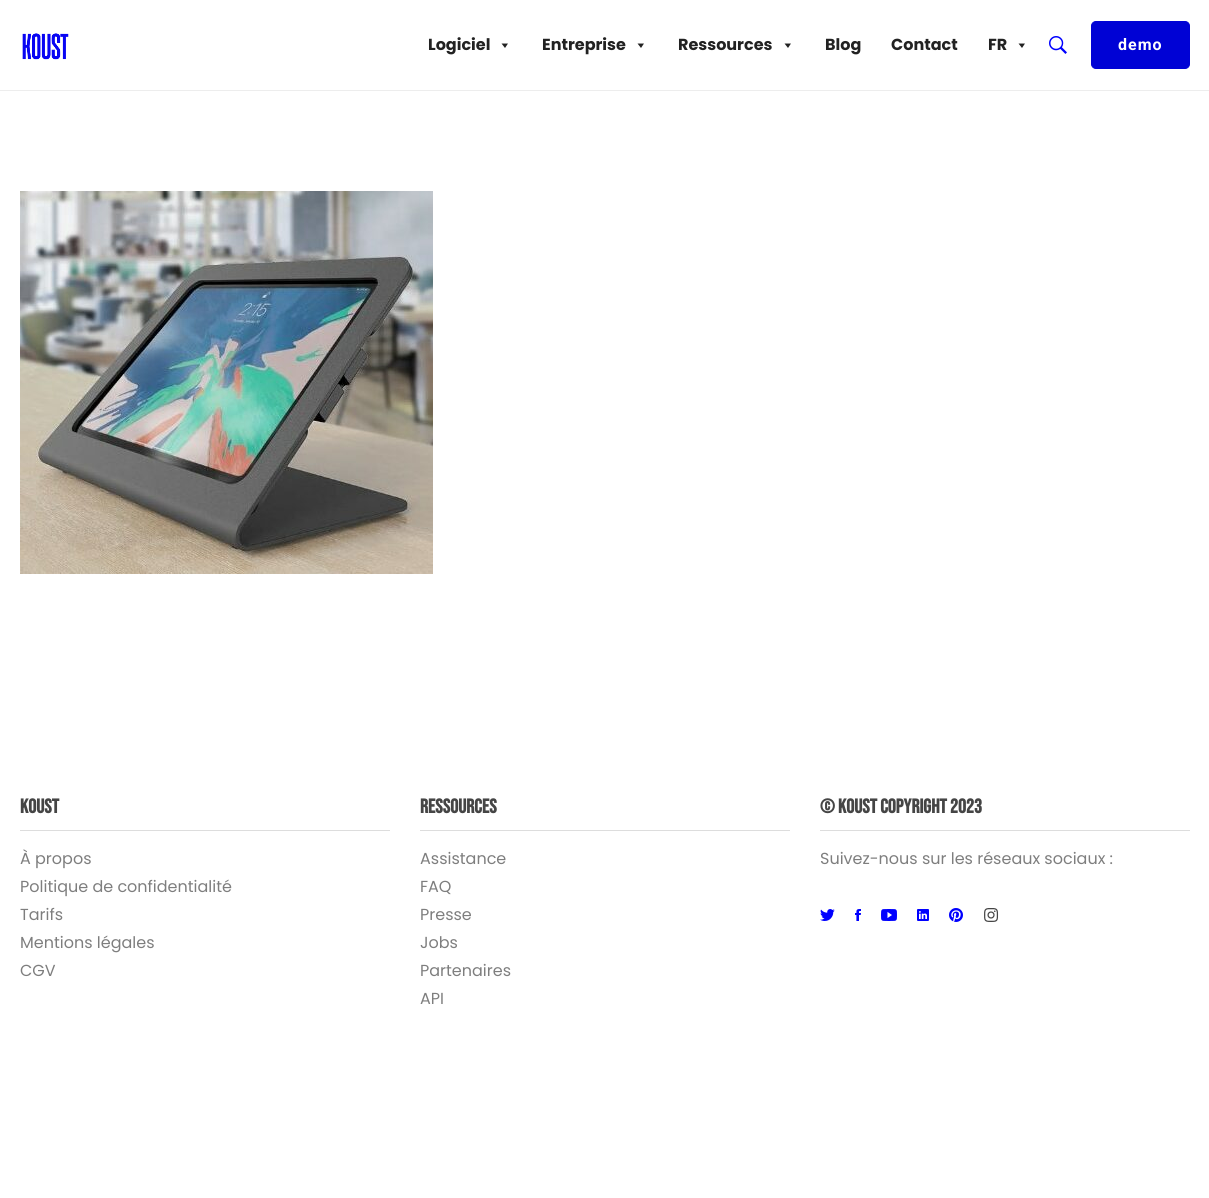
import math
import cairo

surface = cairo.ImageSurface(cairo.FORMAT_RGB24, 1209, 1198)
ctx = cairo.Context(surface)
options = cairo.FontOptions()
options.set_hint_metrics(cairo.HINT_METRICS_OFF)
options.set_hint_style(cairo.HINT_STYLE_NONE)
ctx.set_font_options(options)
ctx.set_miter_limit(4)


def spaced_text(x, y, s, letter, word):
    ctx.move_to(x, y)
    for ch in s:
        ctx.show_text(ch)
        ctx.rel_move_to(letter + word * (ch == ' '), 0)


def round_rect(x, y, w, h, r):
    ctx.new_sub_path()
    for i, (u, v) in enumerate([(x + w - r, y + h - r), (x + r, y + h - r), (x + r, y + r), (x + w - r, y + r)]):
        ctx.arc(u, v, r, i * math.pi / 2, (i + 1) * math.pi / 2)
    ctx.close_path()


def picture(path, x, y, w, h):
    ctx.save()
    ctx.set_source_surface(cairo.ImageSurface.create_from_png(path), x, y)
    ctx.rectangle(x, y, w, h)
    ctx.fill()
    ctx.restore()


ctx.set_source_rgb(1, 1, 1)
ctx.paint()
ctx.set_source_rgb(0.929, 0.929, 0.929)
ctx.rectangle(0, 90, 1209, 1)
ctx.fill()
picture("img1.png", 22, 33, 47, 27)
ctx.select_font_face("Poppins", cairo.FONT_SLANT_NORMAL, cairo.FONT_WEIGHT_BOLD)
ctx.set_font_size(16)
ctx.set_source_rgb(0.133, 0.133, 0.133)
ctx.move_to(428, 50)
ctx.show_text("Logiciel")
ctx.new_path()
ctx.move_to(508, 43.5)
ctx.line_to(505, 48)
ctx.line_to(501.5, 43.5)
ctx.close_path()
ctx.fill()
ctx.move_to(542, 50)
ctx.show_text("Entreprise")
ctx.new_path()
ctx.move_to(644, 43.5)
ctx.line_to(641, 48)
ctx.line_to(637.5, 43.5)
ctx.close_path()
ctx.fill()
ctx.move_to(678, 50)
ctx.show_text("Ressources")
ctx.new_path()
ctx.move_to(791, 43.5)
ctx.line_to(788, 48)
ctx.line_to(784.5, 43.5)
ctx.close_path()
ctx.fill()
ctx.move_to(825, 50)
ctx.show_text("Blog")
ctx.move_to(891, 50)
ctx.show_text("Contact")
ctx.move_to(988, 50)
ctx.show_text("FR")
ctx.new_path()
ctx.move_to(1025, 43.5)
ctx.line_to(1022, 48)
ctx.line_to(1018.5, 43.5)
ctx.close_path()
ctx.fill()
picture("img2.png", 1049, 36, 18, 18)
ctx.set_source_rgb(0, 0.008, 0.835)
round_rect(1091.5, 21.5, 98, 47, 4.5)
ctx.fill_preserve()
ctx.set_line_width(1)
ctx.stroke()
ctx.select_font_face("Roboto", cairo.FONT_SLANT_NORMAL, cairo.FONT_WEIGHT_BOLD)
ctx.set_source_rgb(1, 1, 1)
spaced_text(1118, 50, "demo", 1, 0)
picture("img3.png", 20, 191, 413, 383)
ctx.select_font_face("Bebas Neue", cairo.FONT_SLANT_NORMAL, cairo.FONT_WEIGHT_BOLD)
ctx.set_font_size(20)
ctx.set_source_rgb(0.271, 0.271, 0.271)
ctx.move_to(20, 813)
ctx.show_text("Koust")
ctx.set_source_rgb(0.867, 0.867, 0.867)
ctx.rectangle(20, 830, 370, 1)
ctx.fill()
ctx.select_font_face("Poppins")
ctx.set_font_size(16)
ctx.set_source_rgb(0.494, 0.494, 0.494)
ctx.move_to(20, 864)
ctx.show_text("À propos")
ctx.move_to(20, 892)
ctx.show_text("Politique de confidentialité")
ctx.move_to(20, 920)
ctx.show_text("Tarifs")
ctx.move_to(20, 948)
ctx.show_text("Mentions légales")
ctx.move_to(20, 976)
ctx.show_text("CGV")
ctx.select_font_face("Bebas Neue", cairo.FONT_SLANT_NORMAL, cairo.FONT_WEIGHT_BOLD)
ctx.set_font_size(20)
ctx.set_source_rgb(0.271, 0.271, 0.271)
ctx.move_to(420, 813)
ctx.show_text("Ressources")
ctx.set_source_rgb(0.867, 0.867, 0.867)
ctx.rectangle(420, 830, 370, 1)
ctx.fill()
ctx.select_font_face("Poppins")
ctx.set_font_size(16)
ctx.set_source_rgb(0.494, 0.494, 0.494)
ctx.move_to(420, 864)
ctx.show_text("Assistance")
ctx.move_to(420, 892)
ctx.show_text("FAQ")
ctx.move_to(420, 920)
ctx.show_text("Presse")
ctx.move_to(420, 948)
ctx.show_text("Jobs")
ctx.move_to(420, 976)
ctx.show_text("Partenaires")
ctx.move_to(420, 1004)
ctx.show_text("API")
ctx.select_font_face("Bebas Neue", cairo.FONT_SLANT_NORMAL, cairo.FONT_WEIGHT_BOLD)
ctx.set_font_size(20)
ctx.set_source_rgb(0.271, 0.271, 0.271)
ctx.move_to(820, 813)
ctx.show_text("© Koust Copyright 2023")
ctx.set_source_rgb(0.867, 0.867, 0.867)
ctx.rectangle(820, 830, 370, 1)
ctx.fill()
ctx.select_font_face("Poppins")
ctx.set_font_size(16)
ctx.set_source_rgb(0.494, 0.494, 0.494)
ctx.move_to(820, 864)
ctx.show_text("Suivez-nous sur les réseaux sociaux :")
picture("img4.png", 820, 909, 15, 12)
picture("img5.png", 855, 909, 6, 12)
picture("img6.png", 881, 909, 16, 12)
picture("img7.png", 917, 909, 12, 12)
picture("img8.png", 949, 908, 14, 14)
picture("img9.png", 984, 908, 15, 14)
surface.write_to_png("page.png")
